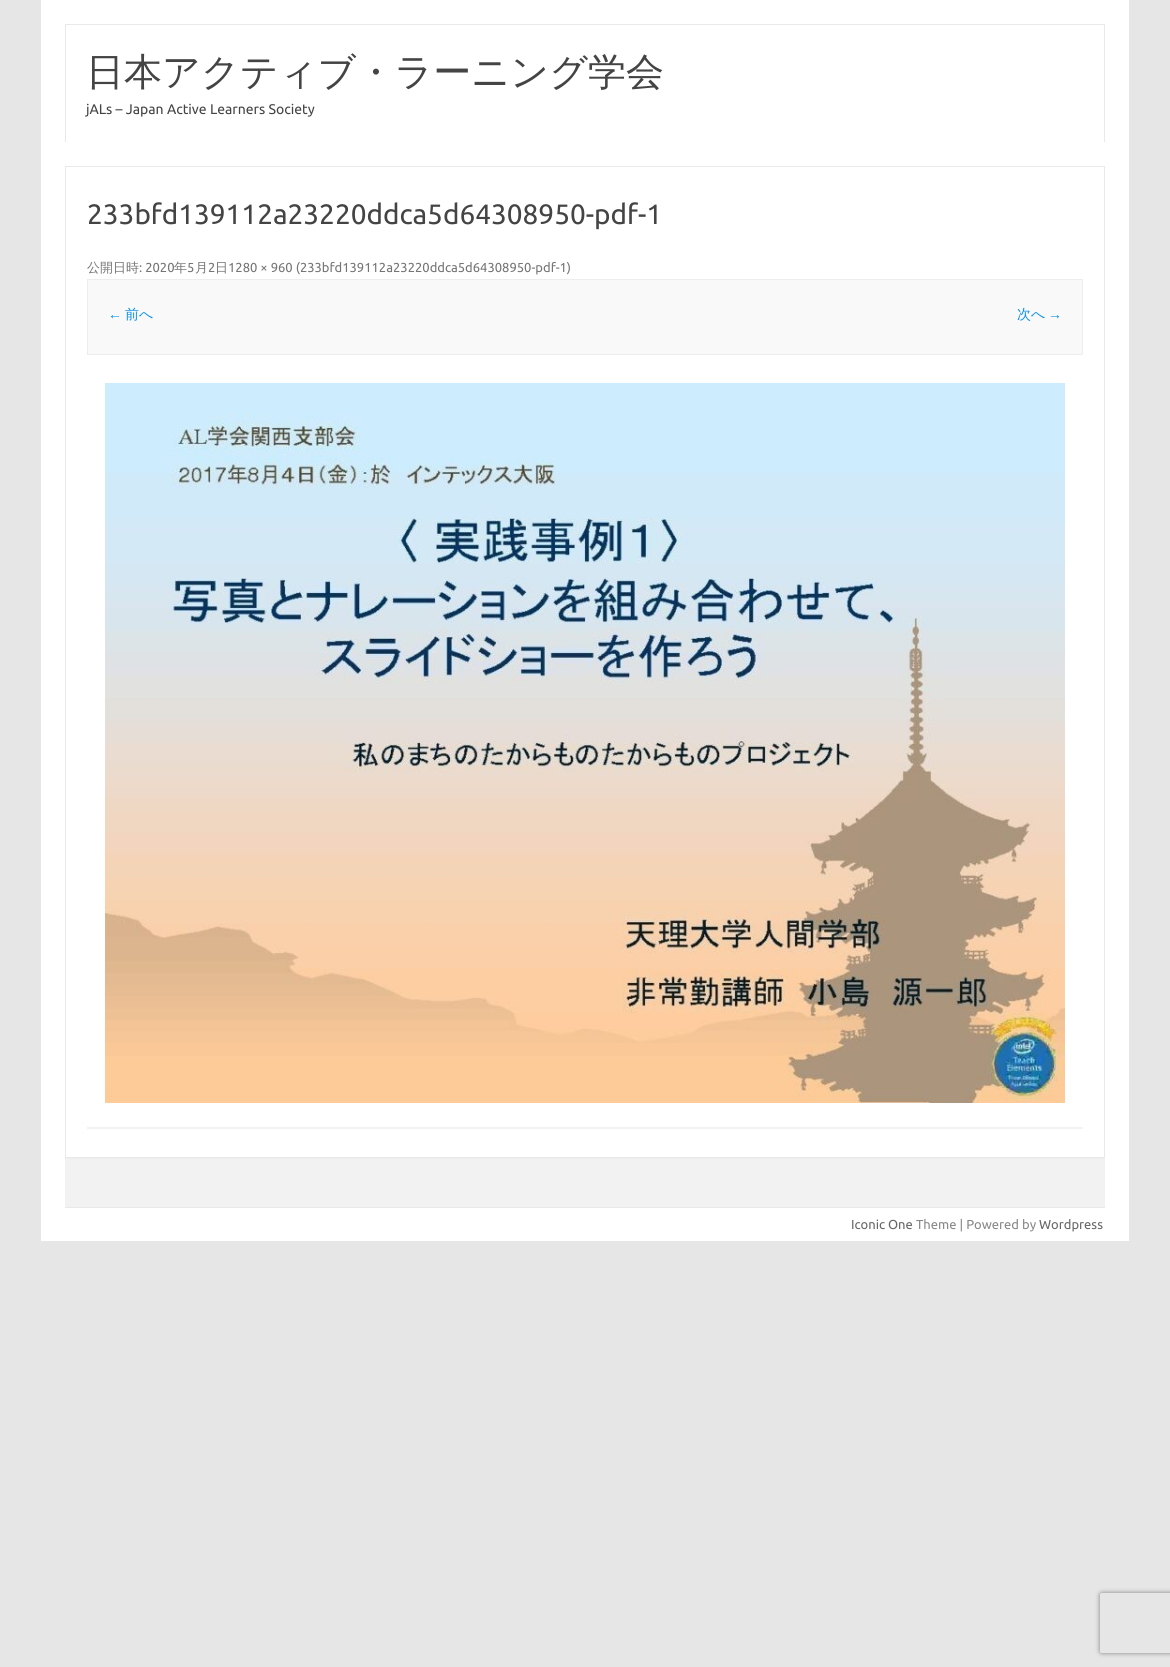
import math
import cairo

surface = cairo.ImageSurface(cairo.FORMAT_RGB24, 1170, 1667)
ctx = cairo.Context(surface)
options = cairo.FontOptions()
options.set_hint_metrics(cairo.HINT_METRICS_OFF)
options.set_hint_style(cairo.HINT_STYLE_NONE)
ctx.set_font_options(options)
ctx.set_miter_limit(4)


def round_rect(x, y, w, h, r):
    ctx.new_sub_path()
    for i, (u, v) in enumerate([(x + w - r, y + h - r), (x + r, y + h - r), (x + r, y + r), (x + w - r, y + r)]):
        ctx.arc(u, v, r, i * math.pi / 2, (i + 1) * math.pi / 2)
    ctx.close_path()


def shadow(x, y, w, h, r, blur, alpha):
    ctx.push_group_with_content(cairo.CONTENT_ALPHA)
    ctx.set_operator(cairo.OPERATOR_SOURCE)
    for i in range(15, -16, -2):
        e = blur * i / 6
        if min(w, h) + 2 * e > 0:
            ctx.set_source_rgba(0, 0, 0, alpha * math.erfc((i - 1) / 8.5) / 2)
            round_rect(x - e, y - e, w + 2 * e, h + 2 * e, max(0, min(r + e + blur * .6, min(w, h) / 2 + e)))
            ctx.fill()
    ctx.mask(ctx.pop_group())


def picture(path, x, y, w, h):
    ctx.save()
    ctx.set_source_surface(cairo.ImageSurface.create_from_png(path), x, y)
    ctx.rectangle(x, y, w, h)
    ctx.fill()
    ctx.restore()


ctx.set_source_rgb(0.902, 0.902, 0.902)
ctx.paint()
ctx.set_source_rgb(1, 1, 1)
ctx.rectangle(41, 0, 1088, 1241)
ctx.fill()
ctx.set_source_rgb(0.914, 0.914, 0.914)
ctx.rectangle(65, 24, 1040, 1)
ctx.fill()
ctx.rectangle(1104, 24, 1, 118)
ctx.fill()
ctx.rectangle(65, 24, 1, 118)
ctx.fill()
ctx.select_font_face("WenQuanYi Zen Hei Medium")
ctx.set_font_size(38)
ctx.set_source_rgb(0.267, 0.267, 0.267)
ctx.move_to(86, 85)
ctx.show_text("日本アクティブ・ラーニング学会")
ctx.select_font_face("Ubuntu")
ctx.set_font_size(14)
ctx.move_to(86, 114)
ctx.show_text("jALs – Japan Active Learners Society")
ctx.rectangle(65.5, 166.5, 1039, 991)
ctx.set_source_rgb(0.914, 0.914, 0.914)
ctx.set_line_width(1)
ctx.stroke()
ctx.set_source_rgb(0.953, 0.953, 0.953)
ctx.rectangle(87, 1127, 996, 2)
ctx.fill()
ctx.set_font_size(28)
ctx.set_source_rgb(0.267, 0.267, 0.267)
ctx.move_to(87, 224)
ctx.show_text("233bfd139112a23220ddca5d64308950-pdf-1")
ctx.select_font_face("WenQuanYi Zen Hei Medium")
ctx.set_font_size(13)
ctx.set_source_rgb(0.459, 0.459, 0.459)
ctx.move_to(87, 272)
ctx.show_text("公開日時")
ctx.select_font_face("Ubuntu")
ctx.move_to(139, 272)
ctx.show_text(": 2020")
ctx.select_font_face("WenQuanYi Zen Hei Medium")
ctx.move_to(174, 272)
ctx.show_text("年")
ctx.select_font_face("Ubuntu")
ctx.move_to(187, 272)
ctx.show_text("5")
ctx.select_font_face("WenQuanYi Zen Hei Medium")
ctx.move_to(195, 272)
ctx.show_text("月")
ctx.select_font_face("Ubuntu")
ctx.move_to(208, 272)
ctx.show_text("2")
ctx.select_font_face("WenQuanYi Zen Hei Medium")
ctx.move_to(215, 272)
ctx.show_text("日")
ctx.select_font_face("Ubuntu")
ctx.move_to(228, 272)
ctx.show_text("1280 × 960 (233bfd139112a23220ddca5d64308950-pdf-1)")
ctx.set_source_rgb(0.976, 0.976, 0.976)
ctx.rectangle(87.5, 279.5, 995, 75)
ctx.fill_preserve()
ctx.set_source_rgb(0.929, 0.929, 0.929)
ctx.stroke()
ctx.select_font_face("Liberation Sans")
ctx.set_font_size(14)
ctx.set_source_rgb(0.043, 0.569, 0.918)
ctx.move_to(108, 319)
ctx.show_text("←")
ctx.select_font_face("WenQuanYi Zen Hei Medium")
ctx.move_to(125, 319)
ctx.show_text("前へ")
ctx.move_to(1017, 319)
ctx.show_text("次へ")
ctx.select_font_face("Liberation Sans")
ctx.move_to(1048, 319)
ctx.show_text("→")
picture("img1.png", 105, 383, 960, 720)
ctx.set_source_rgb(0.949, 0.949, 0.949)
ctx.rectangle(65, 1159, 1040, 48)
ctx.fill()
ctx.set_source_rgb(0.929, 0.929, 0.929)
ctx.rectangle(65, 1158, 1040, 1)
ctx.fill()
ctx.set_source_rgb(0.914, 0.914, 0.914)
ctx.rectangle(65, 1207, 1040, 1)
ctx.fill()
ctx.select_font_face("Ubuntu")
ctx.set_font_size(13)
ctx.set_source_rgb(0.4, 0.4, 0.4)
ctx.move_to(851, 1229)
ctx.show_text("Iconic One")
ctx.set_source_rgb(0.533, 0.533, 0.533)
ctx.move_to(916, 1229)
ctx.show_text("Theme | Powered by")
ctx.set_source_rgb(0.4, 0.4, 0.4)
ctx.move_to(1039, 1229)
ctx.show_text("Wordpress")
ctx.save()
ctx.set_fill_rule(cairo.FILL_RULE_EVEN_ODD)
ctx.new_path()
ctx.move_to(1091, 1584)
ctx.line_to(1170, 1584)
ctx.line_to(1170, 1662)
ctx.line_to(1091, 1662)
ctx.close_path()
ctx.move_to(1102, 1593)
ctx.line_to(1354, 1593)
ctx.curve_to(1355, 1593, 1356, 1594, 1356, 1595)
ctx.line_to(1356, 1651)
ctx.curve_to(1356, 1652, 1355, 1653, 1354, 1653)
ctx.line_to(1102, 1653)
ctx.curve_to(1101, 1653, 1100, 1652, 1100, 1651)
ctx.line_to(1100, 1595)
ctx.curve_to(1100, 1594, 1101, 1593, 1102, 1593)
ctx.close_path()
ctx.clip()
ctx.set_source_rgb(0.502, 0.502, 0.502)
shadow(1100, 1593, 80, 60, 2, 2.5, 1)
ctx.restore()
surface.write_to_png("page.png")
